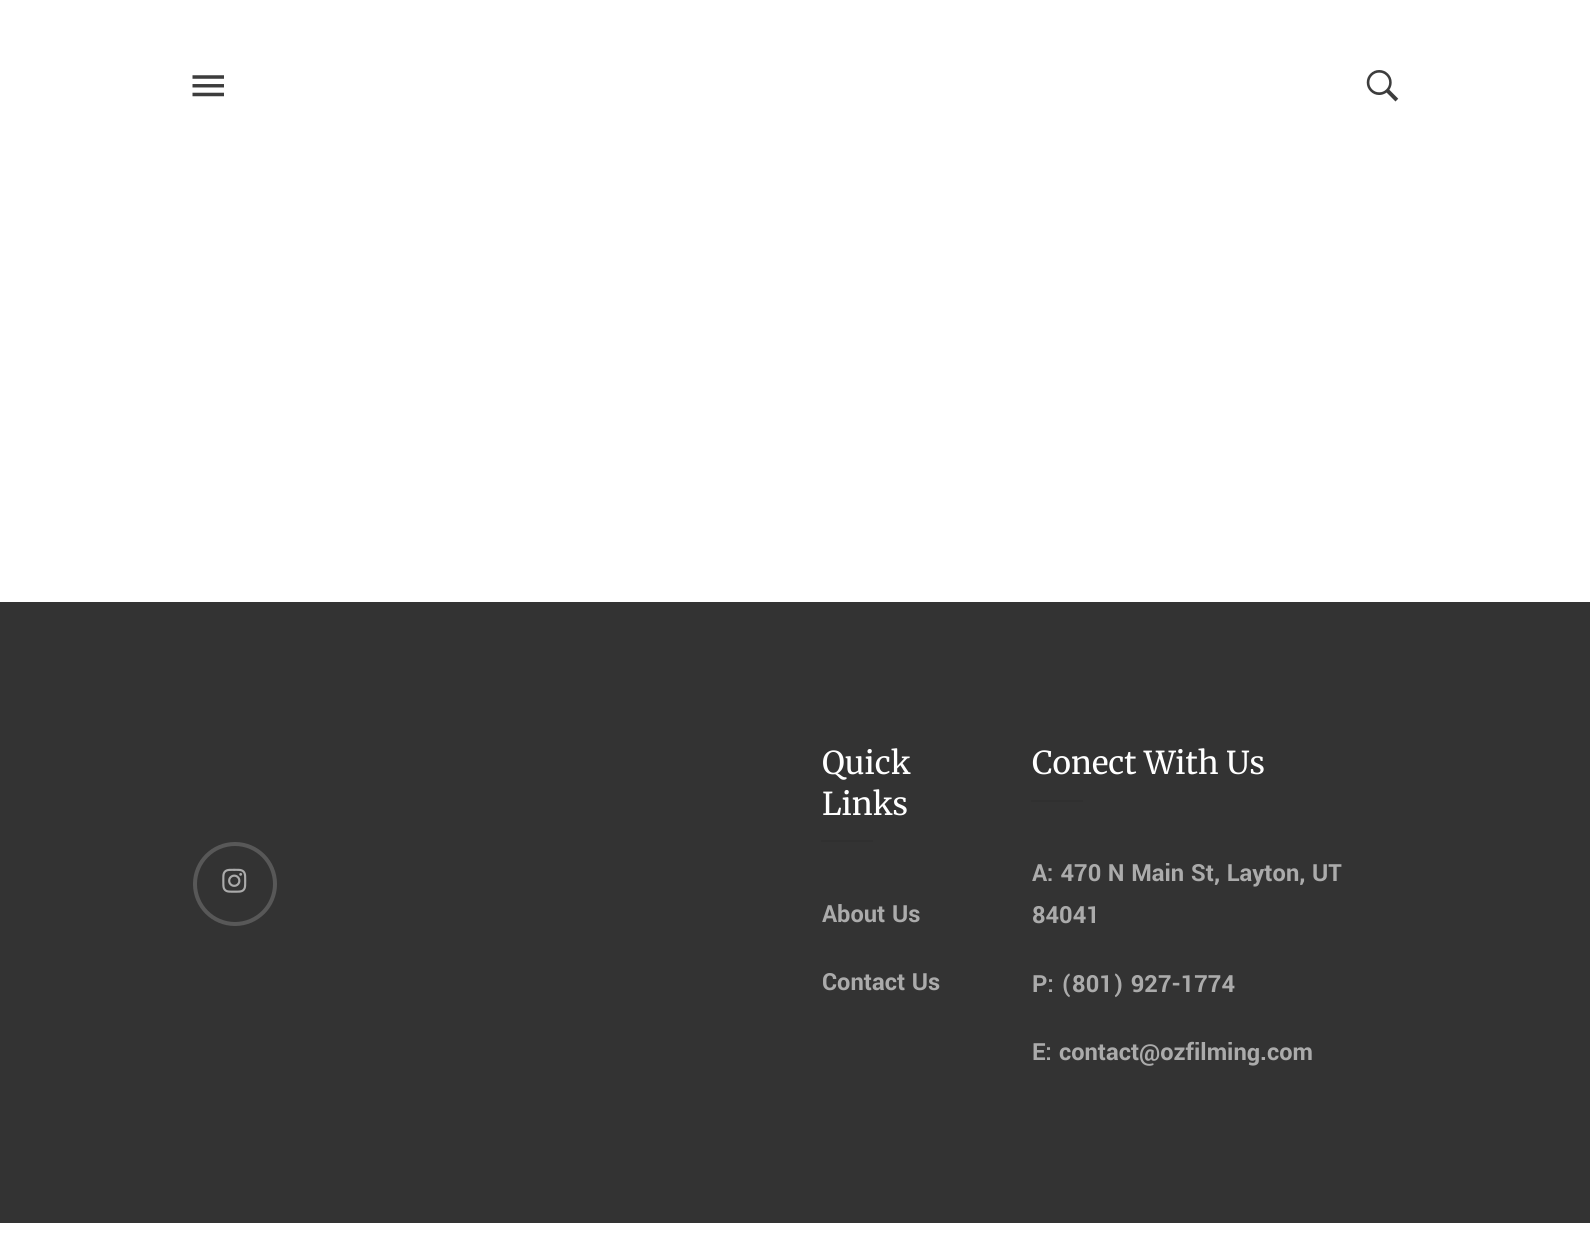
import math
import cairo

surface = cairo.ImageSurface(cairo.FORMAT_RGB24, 1590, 1254)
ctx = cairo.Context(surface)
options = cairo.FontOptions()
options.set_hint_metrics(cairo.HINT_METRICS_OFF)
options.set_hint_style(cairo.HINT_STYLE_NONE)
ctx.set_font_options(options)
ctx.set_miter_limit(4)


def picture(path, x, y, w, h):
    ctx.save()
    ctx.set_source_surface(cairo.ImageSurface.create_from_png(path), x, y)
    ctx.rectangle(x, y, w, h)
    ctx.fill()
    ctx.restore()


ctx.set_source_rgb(1, 1, 1)
ctx.paint()
picture("img1.png", 192, 75, 32, 22)
picture("img2.png", 1366, 70, 33, 32)
ctx.set_source_rgb(0.2, 0.2, 0.2)
ctx.rectangle(0, 602, 1590, 621)
ctx.fill()
ctx.arc(235, 884, 40, 0, 2 * math.pi)
ctx.set_source_rgb(0.345, 0.345, 0.345)
ctx.set_line_width(4)
ctx.stroke()
picture("img3.png", 222, 868, 25, 25)
ctx.select_font_face("Merriweather")
ctx.set_font_size(31.5)
ctx.set_source_rgb(1, 1, 1)
ctx.move_to(822, 774)
ctx.show_text("Quick")
ctx.move_to(822, 815)
ctx.show_text("Links")
ctx.set_source_rgb(0.188, 0.188, 0.188)
ctx.rectangle(821, 840, 52, 2)
ctx.fill()
ctx.select_font_face("Yantramanav", cairo.FONT_SLANT_NORMAL, cairo.FONT_WEIGHT_BOLD)
ctx.set_font_size(26.25)
ctx.set_source_rgb(0.671, 0.671, 0.671)
ctx.move_to(822, 922)
ctx.show_text("About Us")
ctx.move_to(822, 990)
ctx.show_text("Contact Us")
ctx.select_font_face("Merriweather")
ctx.set_font_size(31.5)
ctx.set_source_rgb(1, 1, 1)
ctx.move_to(1032, 774)
ctx.show_text("Conect With Us")
ctx.set_source_rgb(0.188, 0.188, 0.188)
ctx.rectangle(1031, 800, 52, 2)
ctx.fill()
ctx.select_font_face("Yantramanav", cairo.FONT_SLANT_NORMAL, cairo.FONT_WEIGHT_BOLD)
ctx.set_font_size(26.25)
ctx.set_source_rgb(0.671, 0.671, 0.671)
ctx.move_to(1032, 881)
ctx.show_text("A: 470 N Main St, Layton, UT")
ctx.move_to(1032, 923)
ctx.show_text("84041")
ctx.move_to(1032, 992)
ctx.show_text("P: (801) 927-1774")
ctx.move_to(1032, 1060)
ctx.show_text("E: contact@ozfilming.com")
surface.write_to_png("page.png")
